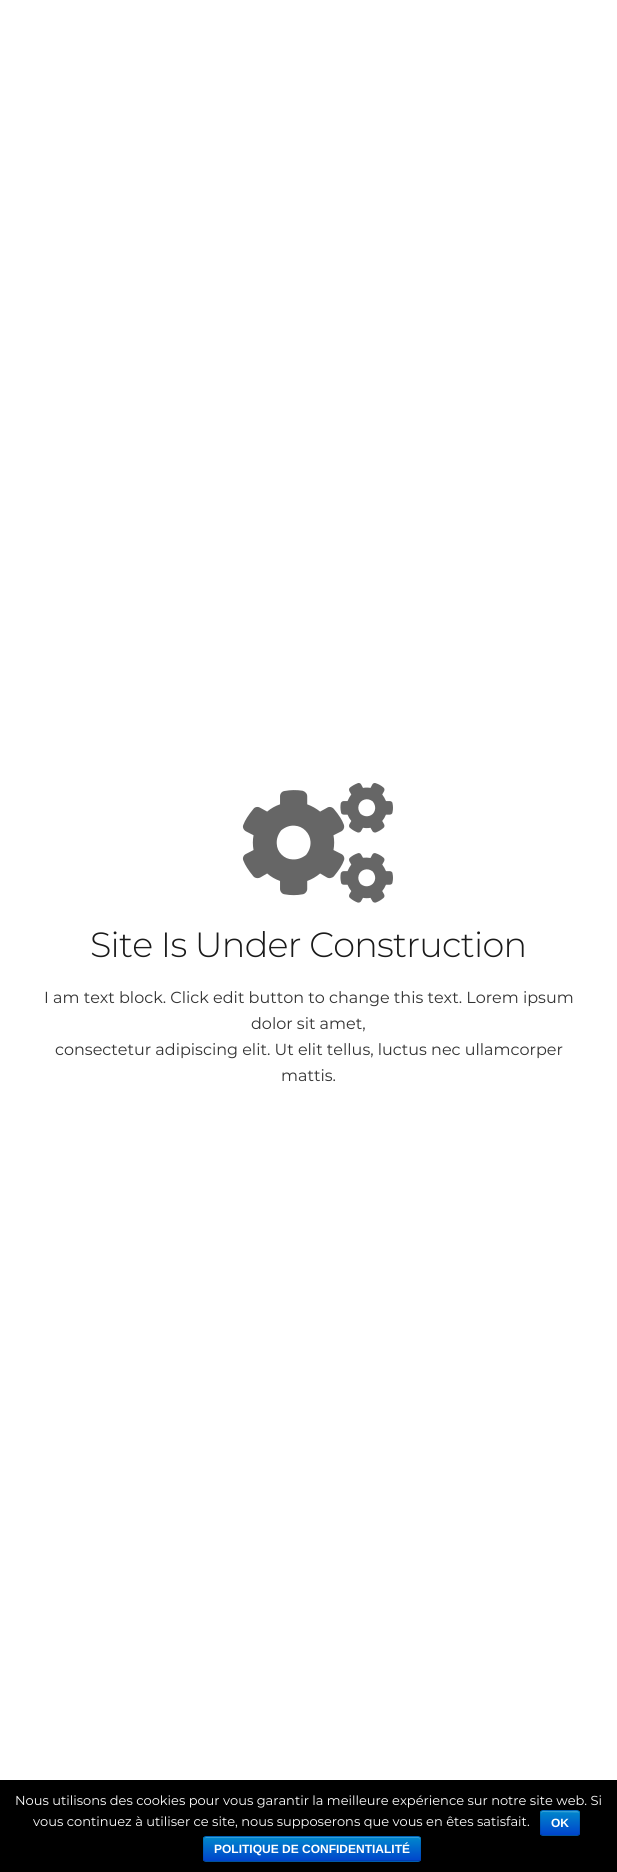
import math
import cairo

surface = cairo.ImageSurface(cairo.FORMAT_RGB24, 617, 1872)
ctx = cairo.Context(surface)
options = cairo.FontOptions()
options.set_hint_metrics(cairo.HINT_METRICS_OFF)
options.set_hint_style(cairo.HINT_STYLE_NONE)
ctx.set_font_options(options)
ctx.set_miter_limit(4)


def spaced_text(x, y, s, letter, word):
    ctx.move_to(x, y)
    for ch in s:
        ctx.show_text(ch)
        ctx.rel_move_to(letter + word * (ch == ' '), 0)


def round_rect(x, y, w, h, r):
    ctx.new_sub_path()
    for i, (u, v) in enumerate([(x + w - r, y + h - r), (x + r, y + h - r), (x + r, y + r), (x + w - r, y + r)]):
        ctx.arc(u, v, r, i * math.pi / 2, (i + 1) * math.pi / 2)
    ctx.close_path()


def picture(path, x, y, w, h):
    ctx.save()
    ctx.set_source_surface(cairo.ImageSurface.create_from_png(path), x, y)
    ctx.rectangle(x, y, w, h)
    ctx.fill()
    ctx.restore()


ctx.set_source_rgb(1, 1, 1)
ctx.paint()
picture("img1.png", 242, 783, 151, 120)
ctx.select_font_face("Montserrat Light")
ctx.set_font_size(35)
ctx.set_source_rgb(0.102, 0.102, 0.102)
spaced_text(90, 957, "Site Is Under Construction", -0.7, 0)
ctx.select_font_face("Montserrat")
ctx.set_font_size(16)
ctx.set_source_rgb(0.2, 0.2, 0.2)
ctx.move_to(44, 1003)
ctx.show_text("I am text block. Click edit button to change this text. Lorem ipsum")
ctx.move_to(251, 1029)
ctx.show_text("dolor sit amet,")
ctx.move_to(55, 1055)
ctx.show_text("consectetur adipiscing elit. Ut elit tellus, luctus nec ullamcorper")
ctx.move_to(281, 1081)
ctx.show_text("mattis.")
ctx.set_source_rgb(0, 0, 0)
ctx.rectangle(0, 1780, 617, 92)
ctx.fill()
ctx.set_font_size(13)
ctx.set_source_rgb(1, 1, 1)
ctx.move_to(15, 1805)
ctx.show_text("Nous utilisons des cookies pour vous garantir la meilleure expérience sur notre site web. Si")
ctx.move_to(33, 1826)
ctx.show_text("vous continuez à utiliser ce site, nous supposerons que vous en êtes satisfait.")
ctx.set_source_rgb(0, 0.427, 0.8)
round_rect(540, 1810, 40, 26, 3)
ctx.fill()
ctx.save()
round_rect(540, 1810, 40, 26, 3)
ctx.clip()
gradient = cairo.LinearGradient(560, 1811, 560, 1835)
gradient.add_color_stop_rgba(0, 0, 0.533, 0.8, 1)
gradient.add_color_stop_rgba(1, 0, 0.267, 0.8, 1)
ctx.set_source(gradient)
ctx.rectangle(540, 1811, 40, 24)
ctx.fill()
ctx.restore()
ctx.set_source_rgba(1, 1, 1, 0.2)
ctx.set_fill_rule(cairo.FILL_RULE_EVEN_ODD)
ctx.new_path()
ctx.move_to(543, 1812)
ctx.line_to(577.5, 1812.5)
ctx.curve_to(578, 1812.5, 578.5, 1812.5, 579, 1813.5)
ctx.curve_to(579, 1809.5, 573, 1811, 571.5, 1811)
ctx.line_to(548.5, 1811)
ctx.curve_to(543.5, 1811, 541, 1809.5, 541, 1814.5)
ctx.curve_to(541, 1813, 542, 1812, 543, 1812)
ctx.close_path()
ctx.move_to(541, 1833.5)
ctx.line_to(541, 1833)
ctx.close_path()
ctx.fill()
ctx.new_path()
ctx.move_to(579, 1835)
ctx.line_to(577, 1835.5)
ctx.line_to(543, 1835.5)
ctx.line_to(541, 1835)
ctx.set_source_rgba(0, 0, 0, 0.25)
ctx.set_line_width(1)
ctx.stroke()
ctx.new_path()
ctx.move_to(541, 1835)
ctx.curve_to(541, 1834.5, 540.5, 1833.5, 540.5, 1833)
ctx.line_to(540.5, 1813)
ctx.curve_to(540.5, 1812.5, 541, 1811.5, 541, 1811)
ctx.curve_to(541.5, 1811, 542.5, 1810.5, 543, 1810.5)
ctx.line_to(577, 1810.5)
ctx.curve_to(577.5, 1810.5, 578.5, 1811, 579, 1811)
ctx.curve_to(579, 1811.5, 579.5, 1812.5, 579.5, 1813)
ctx.line_to(579.5, 1833)
ctx.curve_to(579.5, 1833.5, 579, 1834.5, 579, 1835)
ctx.set_source_rgba(0, 0, 0, 0.1)
ctx.stroke()
ctx.select_font_face("Liberation Sans", cairo.FONT_SLANT_NORMAL, cairo.FONT_WEIGHT_BOLD)
ctx.set_font_size(12)
ctx.set_source_rgb(1, 1, 1)
ctx.move_to(551, 1827)
ctx.show_text("OK")
ctx.set_source_rgb(0, 0.427, 0.8)
round_rect(203, 1836, 218, 26, 3)
ctx.fill()
ctx.save()
ctx.set_fill_rule(cairo.FILL_RULE_WINDING)
round_rect(203, 1836, 218, 26, 3)
ctx.clip()
gradient = cairo.LinearGradient(312, 1837, 312, 1861)
gradient.add_color_stop_rgba(0, 0, 0.533, 0.8, 1)
gradient.add_color_stop_rgba(1, 0, 0.267, 0.8, 1)
ctx.set_source(gradient)
ctx.rectangle(203, 1837, 218, 24)
ctx.fill()
ctx.restore()
ctx.set_source_rgba(1, 1, 1, 0.2)
ctx.set_fill_rule(cairo.FILL_RULE_WINDING)
ctx.new_path()
ctx.move_to(206, 1838)
ctx.line_to(418, 1838)
ctx.curve_to(419, 1838, 420, 1839, 420, 1840)
ctx.curve_to(420, 1839, 420, 1837, 418, 1837)
ctx.line_to(206, 1837)
ctx.line_to(205, 1838)
ctx.line_to(204, 1840)
ctx.curve_to(204, 1839, 205, 1838, 206, 1838)
ctx.close_path()
ctx.fill()
ctx.new_path()
ctx.move_to(420, 1861)
ctx.line_to(419, 1861)
ctx.line_to(241.5, 1861.5)
ctx.line_to(206, 1861.5)
ctx.line_to(204, 1861)
ctx.set_source_rgba(0, 0, 0, 0.25)
ctx.stroke()
ctx.new_path()
ctx.move_to(204, 1861)
ctx.curve_to(202.5, 1859, 203.5, 1848.5, 203.5, 1845.5)
ctx.curve_to(203.5, 1844, 202, 1836.5, 206, 1836.5)
ctx.line_to(418, 1836.5)
ctx.curve_to(422, 1836.5, 420.5, 1844, 420.5, 1845.5)
ctx.curve_to(420.5, 1848.5, 421.5, 1859, 420, 1861)
ctx.set_source_rgba(0, 0, 0, 0.1)
ctx.stroke()
ctx.set_source_rgb(1, 1, 1)
ctx.move_to(214, 1853)
ctx.show_text("POLITIQUE DE CONFIDENTIALITÉ")
surface.write_to_png("page.png")
